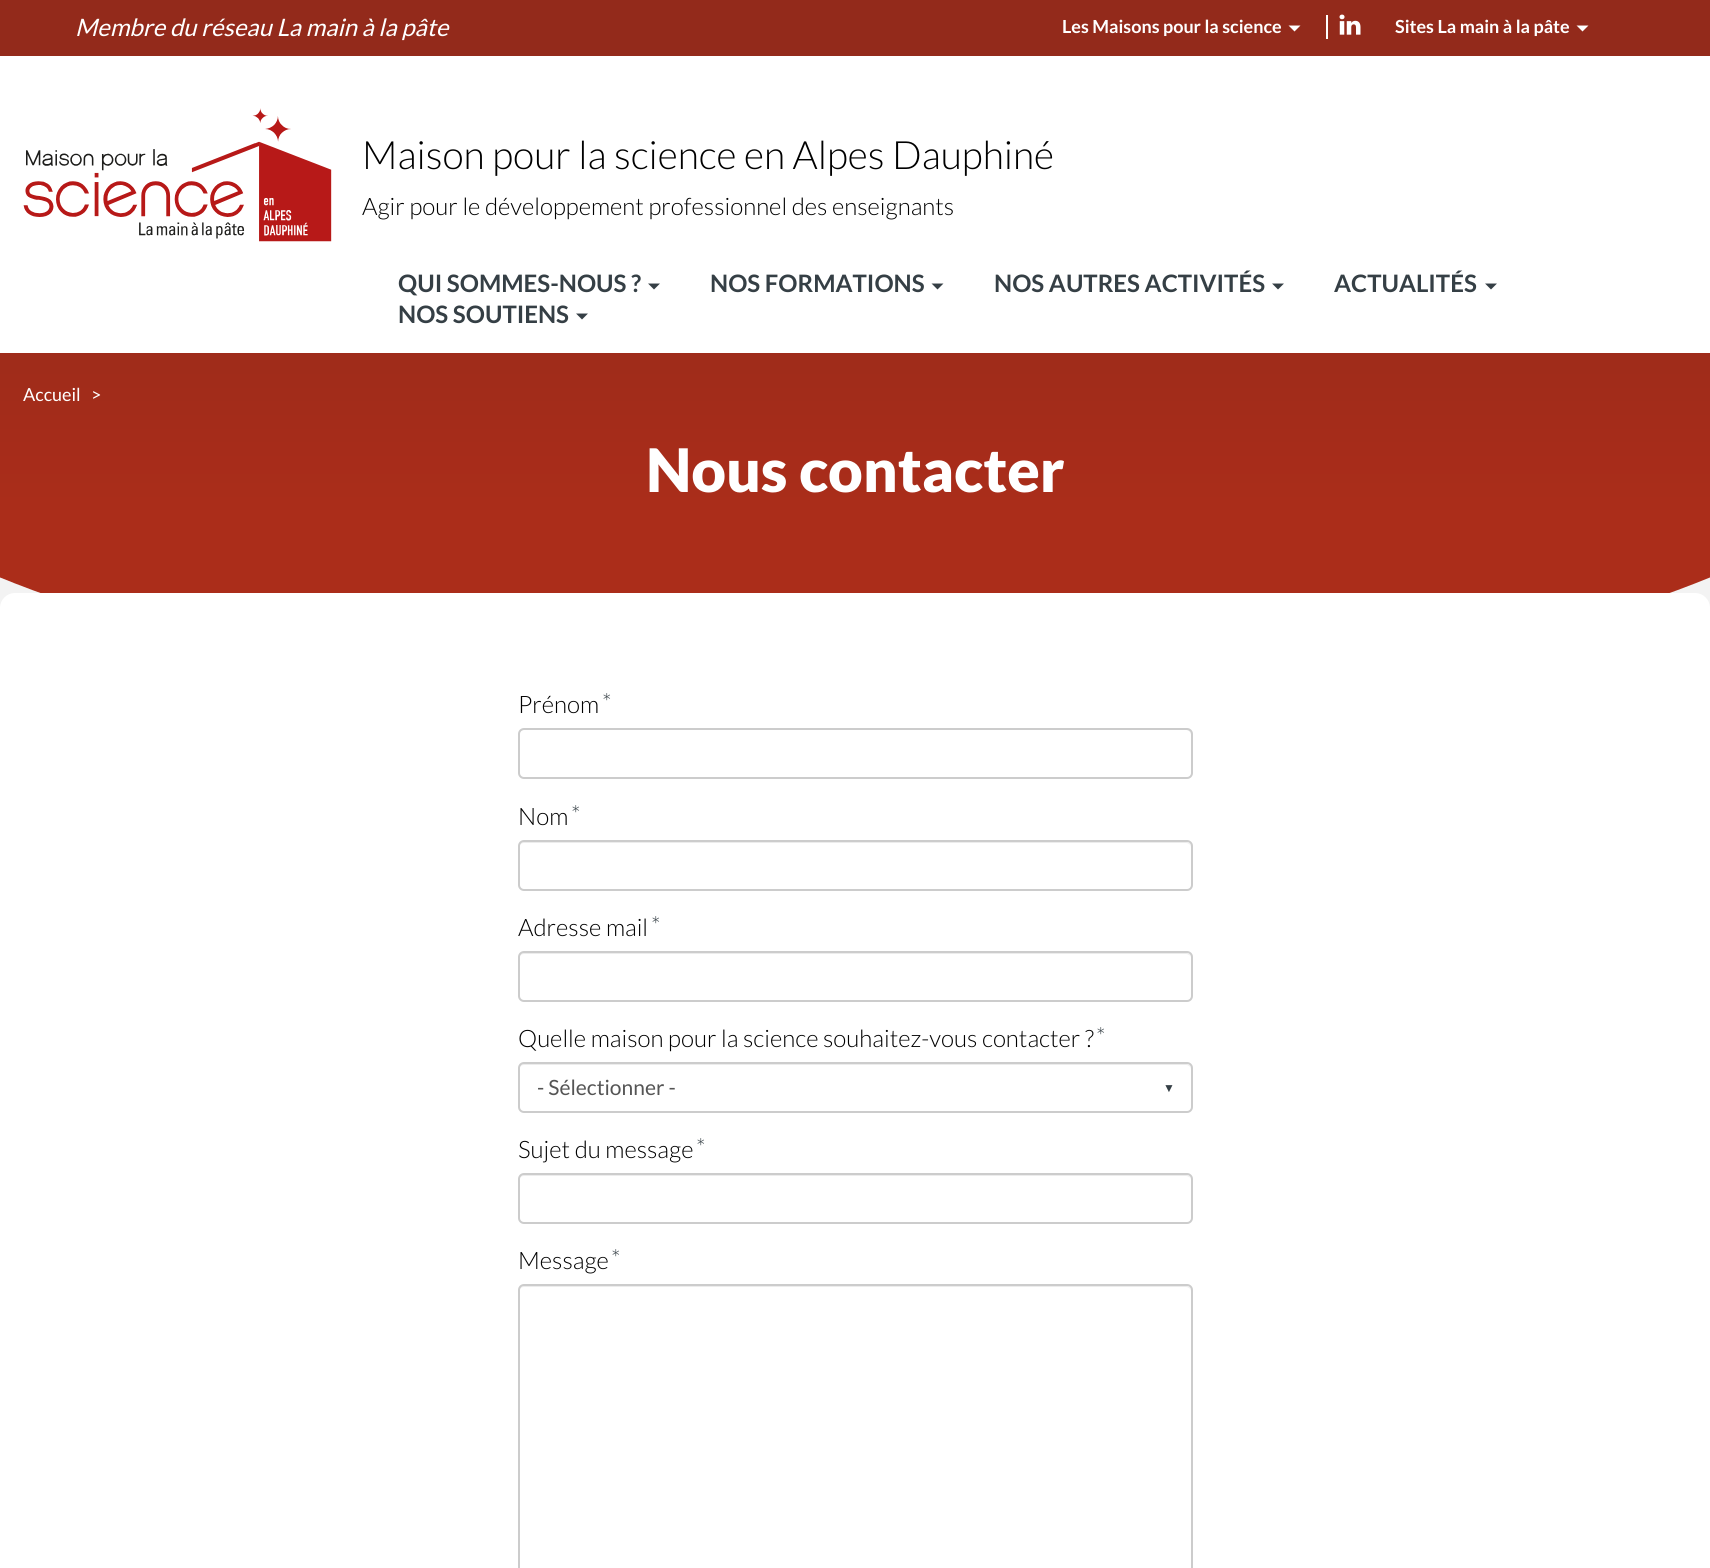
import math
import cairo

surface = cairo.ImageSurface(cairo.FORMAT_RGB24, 1710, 1568)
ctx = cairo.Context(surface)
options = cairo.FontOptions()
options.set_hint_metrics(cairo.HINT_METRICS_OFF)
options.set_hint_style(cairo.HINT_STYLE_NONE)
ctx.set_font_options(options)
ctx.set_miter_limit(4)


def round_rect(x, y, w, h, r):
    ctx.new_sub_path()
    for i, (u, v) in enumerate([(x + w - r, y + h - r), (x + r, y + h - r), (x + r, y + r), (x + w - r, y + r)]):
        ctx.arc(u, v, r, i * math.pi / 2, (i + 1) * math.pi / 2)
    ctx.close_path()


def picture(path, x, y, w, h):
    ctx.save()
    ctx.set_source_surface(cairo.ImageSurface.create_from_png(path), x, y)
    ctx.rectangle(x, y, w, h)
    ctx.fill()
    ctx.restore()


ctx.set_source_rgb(1, 1, 1)
ctx.paint()
ctx.set_source_rgb(0.576, 0.165, 0.106)
ctx.rectangle(0, 0, 1710, 56)
ctx.fill()
ctx.select_font_face("Lato", cairo.FONT_SLANT_ITALIC)
ctx.set_font_size(24)
ctx.set_source_rgb(1, 1, 1)
ctx.move_to(75, 36)
ctx.show_text("Membre du réseau La main à la pâte")
ctx.rectangle(1326, 15, 2, 24)
ctx.fill()
ctx.select_font_face("Lato", cairo.FONT_SLANT_NORMAL, cairo.FONT_WEIGHT_BOLD)
ctx.set_font_size(18)
ctx.move_to(1062, 33)
ctx.show_text("Les Maisons pour la science")
ctx.new_path()
ctx.move_to(1288.5, 25.5)
ctx.line_to(1300.5, 25.5)
ctx.line_to(1294.5, 31.5)
ctx.close_path()
ctx.fill()
picture("img1.png", 1339, 14, 22, 21)
ctx.move_to(1395, 33)
ctx.show_text("Sites La main à la pâte")
ctx.new_path()
ctx.move_to(1576.5, 25.5)
ctx.line_to(1588.5, 25.5)
ctx.line_to(1582.5, 31.5)
ctx.close_path()
ctx.fill()
picture("img2.png", 23, 108, 309, 134)
ctx.select_font_face("Lato Light")
ctx.set_font_size(39)
ctx.set_source_rgb(0, 0, 0)
ctx.move_to(362, 169)
ctx.show_text("Maison pour la science en Alpes Dauphiné")
ctx.set_font_size(24)
ctx.move_to(362, 215)
ctx.show_text("Agir pour le développement professionnel des enseignants")
ctx.select_font_face("Lato", cairo.FONT_SLANT_NORMAL, cairo.FONT_WEIGHT_BOLD)
ctx.set_source_rgb(0.208, 0.247, 0.271)
ctx.move_to(398, 292)
ctx.show_text("QUI SOMMES-NOUS ?")
ctx.new_path()
ctx.move_to(648, 283.5)
ctx.line_to(660, 283.5)
ctx.line_to(654, 289.5)
ctx.close_path()
ctx.fill()
ctx.move_to(710, 292)
ctx.show_text("NOS FORMATIONS")
ctx.new_path()
ctx.move_to(931.5, 283.5)
ctx.line_to(943.5, 283.5)
ctx.line_to(937.5, 289.5)
ctx.close_path()
ctx.fill()
ctx.move_to(994, 292)
ctx.show_text("NOS AUTRES ACTIVITÉS")
ctx.new_path()
ctx.move_to(1272, 283.5)
ctx.line_to(1284, 283.5)
ctx.line_to(1278, 289.5)
ctx.close_path()
ctx.fill()
ctx.move_to(1334, 292)
ctx.show_text("ACTUALITÉS")
ctx.new_path()
ctx.move_to(1485, 283.5)
ctx.line_to(1497, 283.5)
ctx.line_to(1491, 289.5)
ctx.close_path()
ctx.fill()
ctx.move_to(398, 323)
ctx.show_text("NOS SOUTIENS")
ctx.new_path()
ctx.move_to(576, 313.5)
ctx.line_to(588, 313.5)
ctx.line_to(582, 319.5)
ctx.close_path()
ctx.fill()
ctx.set_source_rgb(0.953, 0.953, 0.953)
ctx.rectangle(0, 577, 1710, 31)
ctx.fill()
ctx.save()
ctx.rectangle(0, 353, 1710, 360)
ctx.clip()
gradient = cairo.LinearGradient(855, 188, 855, 713)
gradient.add_color_stop_rgba(0, 0.576, 0.165, 0.106, 1)
gradient.add_color_stop_rgba(0.63, 0.671, 0.176, 0.102, 1)
ctx.set_source(gradient)
ctx.new_path()
ctx.move_to(-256, 188)
ctx.line_to(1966, 188)
ctx.line_to(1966, 338)
ctx.curve_to(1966, 545, 1469, 713, 855, 713)
ctx.curve_to(241, 713, -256, 545, -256, 338)
ctx.close_path()
ctx.fill()
ctx.restore()
ctx.select_font_face("Lato")
ctx.set_font_size(18)
ctx.set_source_rgb(1, 1, 1)
ctx.move_to(23, 401)
ctx.show_text("Accueil")
ctx.move_to(91, 401)
ctx.show_text(">")
ctx.select_font_face("Lato Black")
ctx.set_font_size(60)
ctx.move_to(646, 492)
ctx.show_text("Nous contacter")
round_rect(0, 593, 1710, 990, 15)
ctx.fill()
ctx.select_font_face("Lato Light")
ctx.set_font_size(24)
ctx.set_source_rgb(0, 0, 0)
ctx.move_to(518, 713)
ctx.show_text("Prénom")
ctx.set_source_rgb(0.208, 0.247, 0.271)
ctx.move_to(602, 711)
ctx.show_text("*")
ctx.set_source_rgb(0.925, 0.925, 0.925)
ctx.new_path()
ctx.move_to(524, 730)
ctx.line_to(1186, 730)
ctx.curve_to(1189, 730, 1191, 733, 1191, 735)
ctx.line_to(1191, 734)
ctx.curve_to(1191, 731, 1189, 729, 1186, 729)
ctx.line_to(524, 729)
ctx.curve_to(521, 729, 519, 731, 519, 734)
ctx.line_to(519, 735)
ctx.curve_to(519, 733, 521, 730, 524, 730)
ctx.close_path()
ctx.fill()
round_rect(519, 729, 673, 49, 5)
ctx.set_source_rgb(0.8, 0.8, 0.8)
ctx.stroke()
ctx.set_source_rgb(0, 0, 0)
ctx.move_to(518, 825)
ctx.show_text("Nom")
ctx.set_source_rgb(0.208, 0.247, 0.271)
ctx.move_to(571, 823)
ctx.show_text("*")
ctx.set_source_rgb(0.925, 0.925, 0.925)
ctx.new_path()
ctx.move_to(524, 843)
ctx.line_to(1186, 843)
ctx.curve_to(1189, 843, 1191, 845, 1191, 848)
ctx.line_to(1191, 847)
ctx.curve_to(1191, 844, 1189, 842, 1186, 842)
ctx.line_to(524, 842)
ctx.curve_to(521, 842, 519, 844, 519, 847)
ctx.line_to(519, 848)
ctx.curve_to(519, 845, 521, 843, 524, 843)
ctx.close_path()
ctx.fill()
round_rect(519, 841, 673, 49, 5)
ctx.set_source_rgb(0.8, 0.8, 0.8)
ctx.stroke()
ctx.set_source_rgb(0, 0, 0)
ctx.move_to(518, 936)
ctx.show_text("Adresse mail")
ctx.set_source_rgb(0.208, 0.247, 0.271)
ctx.move_to(651, 934)
ctx.show_text("*")
ctx.set_source_rgb(0.925, 0.925, 0.925)
ctx.new_path()
ctx.move_to(524, 954)
ctx.line_to(1186, 954)
ctx.curve_to(1189, 954, 1191, 956, 1191, 958)
ctx.curve_to(1191, 955, 1189, 953, 1186, 953)
ctx.line_to(524, 953)
ctx.curve_to(521, 953, 519, 955, 519, 958)
ctx.curve_to(519, 956, 521, 954, 524, 954)
ctx.close_path()
ctx.fill()
round_rect(519, 952, 673, 49, 5)
ctx.set_source_rgb(0.8, 0.8, 0.8)
ctx.stroke()
ctx.set_source_rgb(0, 0, 0)
ctx.move_to(518, 1047)
ctx.show_text("Quelle maison pour la science souhaitez-vous contacter ?")
ctx.set_source_rgb(0.208, 0.247, 0.271)
ctx.move_to(1096, 1045)
ctx.show_text("*")
ctx.set_source_rgb(0.925, 0.925, 0.925)
ctx.new_path()
ctx.move_to(524, 1065)
ctx.line_to(1186, 1065)
ctx.curve_to(1189, 1065, 1191, 1067, 1191, 1070)
ctx.line_to(1191, 1069)
ctx.curve_to(1191, 1066, 1189, 1064, 1186, 1064)
ctx.line_to(524, 1064)
ctx.curve_to(521, 1064, 519, 1066, 519, 1069)
ctx.line_to(519, 1070)
ctx.curve_to(519, 1067, 521, 1065, 524, 1065)
ctx.close_path()
ctx.fill()
round_rect(519, 1063, 673, 49, 5)
ctx.set_source_rgb(0.8, 0.8, 0.8)
ctx.stroke()
ctx.select_font_face("Lato")
ctx.set_font_size(21)
ctx.set_source_rgb(0.333, 0.333, 0.333)
ctx.move_to(537, 1095)
ctx.show_text("- Sélectionner -")
ctx.select_font_face("Liberation Serif")
ctx.set_font_size(12)
ctx.set_source_rgb(0.208, 0.247, 0.271)
ctx.move_to(1163, 1092)
ctx.show_text("▼")
ctx.select_font_face("Lato Light")
ctx.set_font_size(24)
ctx.set_source_rgb(0, 0, 0)
ctx.move_to(518, 1158)
ctx.show_text("Sujet du message")
ctx.set_source_rgb(0.208, 0.247, 0.271)
ctx.move_to(696, 1156)
ctx.show_text("*")
ctx.set_source_rgb(0.925, 0.925, 0.925)
ctx.new_path()
ctx.move_to(524, 1176)
ctx.line_to(1186, 1176)
ctx.curve_to(1189, 1176, 1191, 1178, 1191, 1180)
ctx.curve_to(1191, 1177, 1189, 1175, 1186, 1175)
ctx.line_to(524, 1175)
ctx.curve_to(521, 1175, 519, 1177, 519, 1180)
ctx.curve_to(519, 1178, 521, 1176, 524, 1176)
ctx.close_path()
ctx.fill()
round_rect(519, 1174, 673, 49, 5)
ctx.set_source_rgb(0.8, 0.8, 0.8)
ctx.stroke()
ctx.set_source_rgb(0, 0, 0)
ctx.move_to(518, 1269)
ctx.show_text("Message")
ctx.set_source_rgb(0.208, 0.247, 0.271)
ctx.move_to(611, 1267)
ctx.show_text("*")
ctx.set_source_rgb(0.925, 0.925, 0.925)
ctx.new_path()
ctx.move_to(524, 1287)
ctx.line_to(1186, 1287)
ctx.curve_to(1189, 1287, 1191, 1289, 1191, 1292)
ctx.line_to(1191, 1291)
ctx.curve_to(1191, 1288, 1189, 1286, 1186, 1286)
ctx.line_to(524, 1286)
ctx.curve_to(521, 1286, 519, 1288, 519, 1291)
ctx.line_to(519, 1292)
ctx.curve_to(519, 1289, 521, 1287, 524, 1287)
ctx.close_path()
ctx.fill()
round_rect(519, 1285, 673, 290, 5)
ctx.set_source_rgb(0.8, 0.8, 0.8)
ctx.stroke()
surface.write_to_png("page.png")
